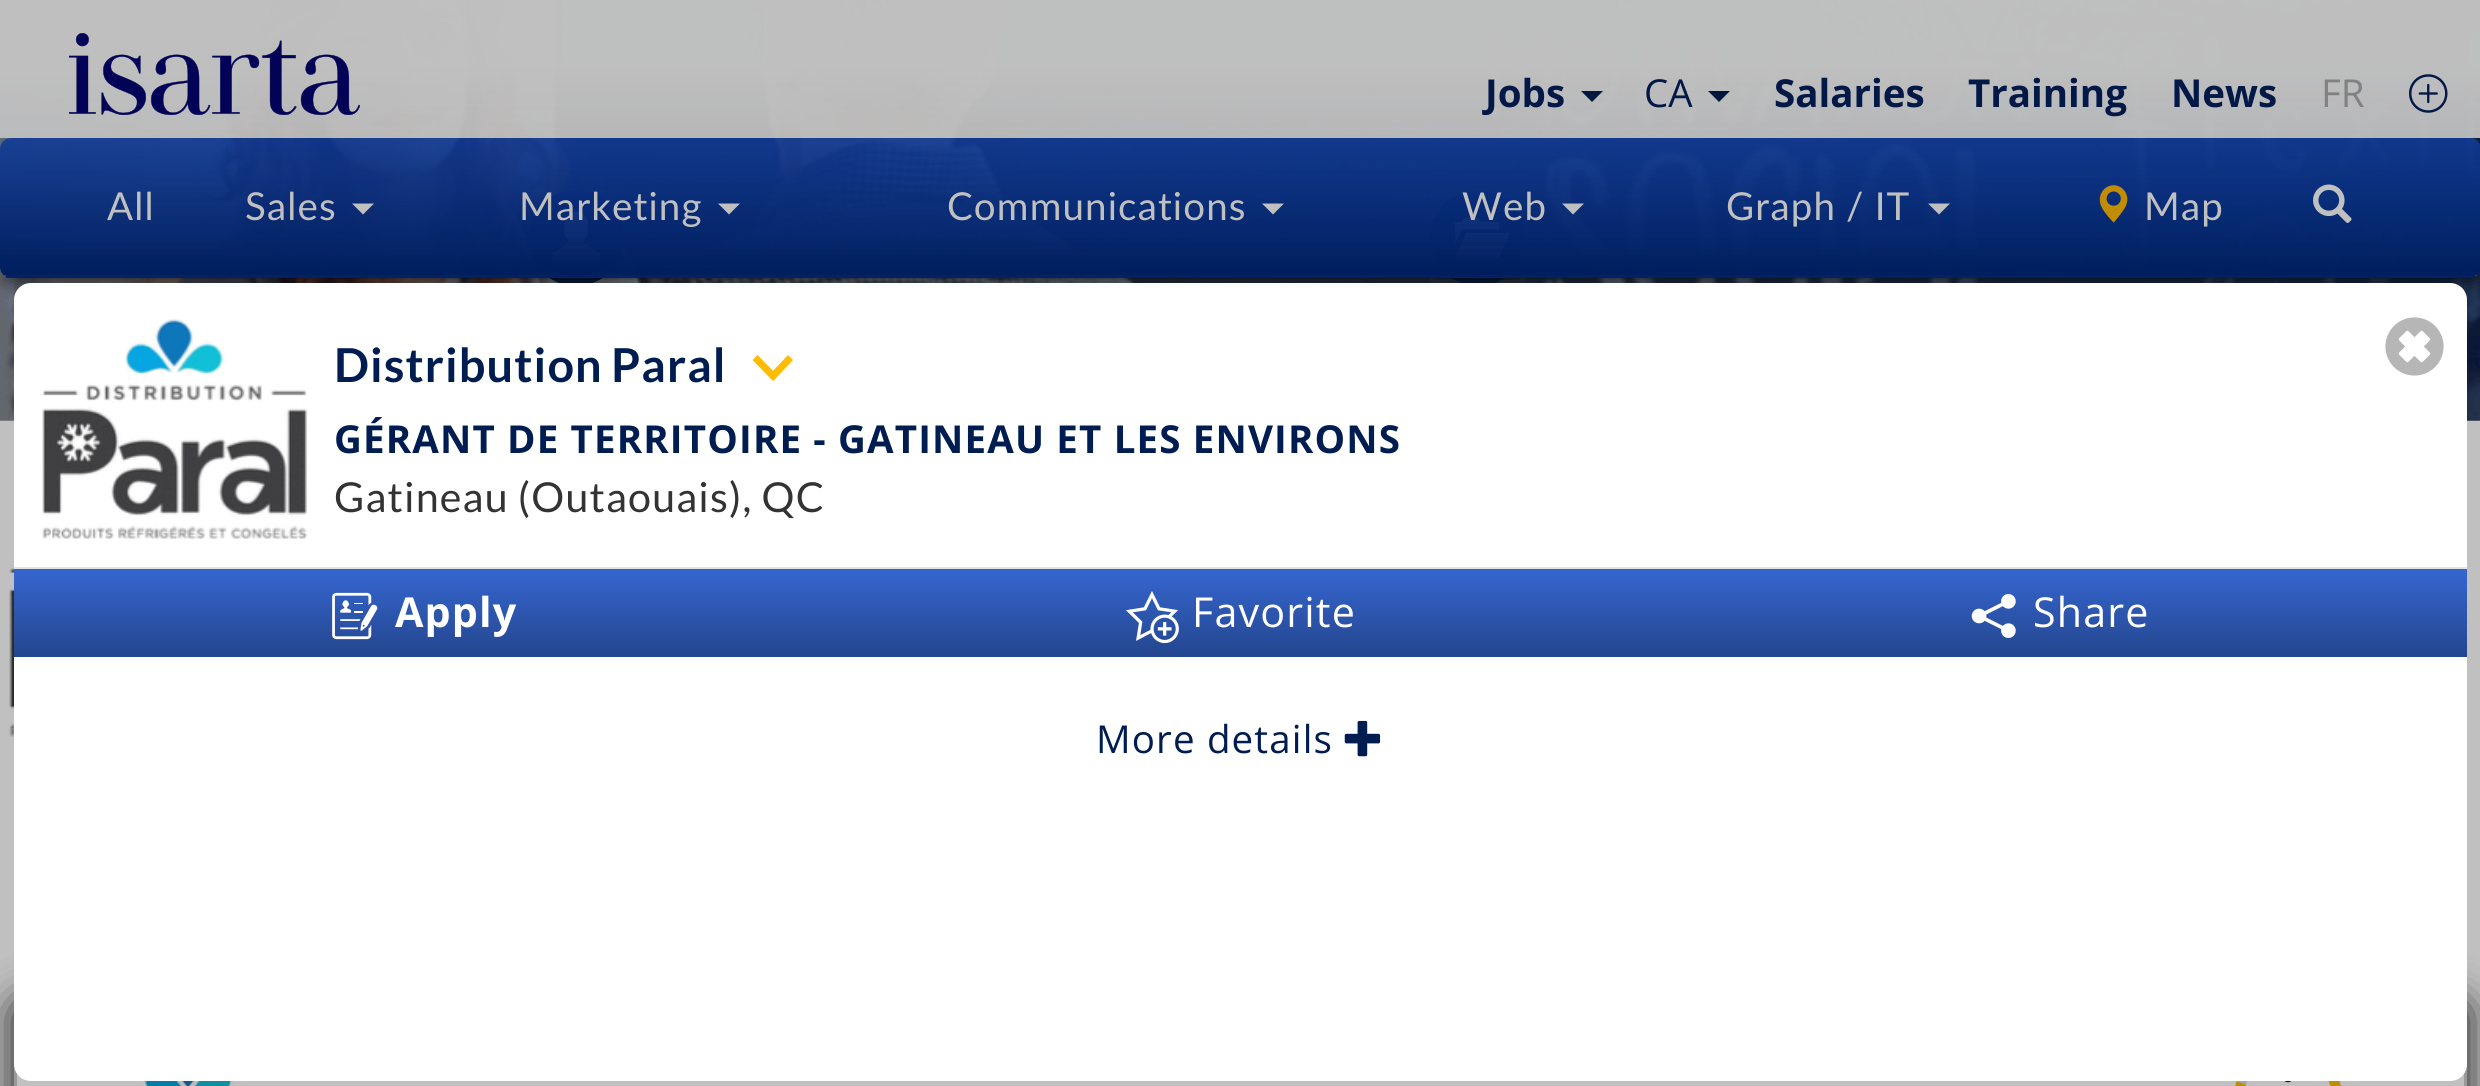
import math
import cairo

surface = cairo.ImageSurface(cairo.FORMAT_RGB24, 2480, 1086)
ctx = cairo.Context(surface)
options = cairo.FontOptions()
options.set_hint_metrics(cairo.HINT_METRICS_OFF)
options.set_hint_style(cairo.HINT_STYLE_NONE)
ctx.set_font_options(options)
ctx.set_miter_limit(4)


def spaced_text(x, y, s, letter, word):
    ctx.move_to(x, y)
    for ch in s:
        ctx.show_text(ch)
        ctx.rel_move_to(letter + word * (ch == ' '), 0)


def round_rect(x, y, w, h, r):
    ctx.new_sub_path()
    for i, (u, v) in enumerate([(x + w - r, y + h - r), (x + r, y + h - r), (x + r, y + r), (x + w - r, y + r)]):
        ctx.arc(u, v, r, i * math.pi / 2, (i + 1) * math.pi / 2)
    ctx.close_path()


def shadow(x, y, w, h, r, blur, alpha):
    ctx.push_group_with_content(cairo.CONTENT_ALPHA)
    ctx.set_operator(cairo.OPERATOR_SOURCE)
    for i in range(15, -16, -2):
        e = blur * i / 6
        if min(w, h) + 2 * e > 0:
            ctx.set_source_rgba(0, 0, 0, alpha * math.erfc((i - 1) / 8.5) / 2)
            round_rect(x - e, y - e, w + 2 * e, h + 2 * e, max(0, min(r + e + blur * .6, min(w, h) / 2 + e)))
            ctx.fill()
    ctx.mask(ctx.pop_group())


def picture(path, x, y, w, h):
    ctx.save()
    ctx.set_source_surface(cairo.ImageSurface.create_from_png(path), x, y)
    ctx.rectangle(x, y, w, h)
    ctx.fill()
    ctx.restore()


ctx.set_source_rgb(0.753, 0.753, 0.753)
ctx.paint()
picture("img3.png", 0, 0, 2480, 421)
ctx.set_source_rgb(0, 0.086, 0.239)
ctx.arc(576, 238, 48, 0, 2 * math.pi)
ctx.fill()
ctx.rectangle(531, 193, 90, 90)
ctx.set_source_rgba(0.753, 0.753, 0.753, 0.05)
ctx.set_line_width(6)
ctx.stroke()
picture("img4.png", 552, 211, 48, 48)
ctx.set_source_rgb(0, 0.086, 0.239)
ctx.arc(1478, 238, 48, 0, 2 * math.pi)
ctx.fill()
ctx.rectangle(1433, 193, 90, 90)
ctx.set_source_rgba(0.753, 0.753, 0.753, 0.05)
ctx.stroke()
ctx.set_source_rgb(0.753, 0.753, 0.753)
ctx.new_path()
ctx.move_to(1462, 229)
ctx.line_to(1455, 244)
ctx.line_to(1455, 222)
ctx.line_to(1462, 222)
ctx.curve_to(1462, 217, 1468, 218, 1471, 218)
ctx.curve_to(1474, 218, 1480, 217, 1480, 222)
ctx.line_to(1499, 222)
ctx.line_to(1499, 229)
ctx.close_path()
ctx.move_to(1510, 233)
ctx.line_to(1499, 258)
ctx.line_to(1455, 258)
ctx.line_to(1466, 233)
ctx.close_path()
ctx.fill()
ctx.save()
ctx.set_fill_rule(cairo.FILL_RULE_EVEN_ODD)
ctx.new_path()
ctx.move_to(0, 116)
ctx.line_to(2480, 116)
ctx.line_to(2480, 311)
ctx.line_to(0, 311)
ctx.close_path()
ctx.move_to(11, 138)
ctx.line_to(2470, 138)
ctx.curve_to(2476, 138, 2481, 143, 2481, 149)
ctx.line_to(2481, 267)
ctx.curve_to(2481, 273, 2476, 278, 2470, 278)
ctx.line_to(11, 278)
ctx.curve_to(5, 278, 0, 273, 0, 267)
ctx.line_to(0, 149)
ctx.curve_to(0, 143, 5, 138, 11, 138)
ctx.close_path()
ctx.clip()
ctx.set_source_rgb(0, 0, 0)
shadow(8, 146, 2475, 135, 8, 9.5, 0.75)
ctx.restore()
gradient = cairo.LinearGradient(1240, 0, 1240, 138)
gradient.add_color_stop_rgba(0, 0.753, 0.753, 0.753, 0.99)
gradient.add_color_stop_rgba(0.45, 0.753, 0.753, 0.753, 0.99)
gradient.add_color_stop_rgba(1, 0.753, 0.753, 0.753, 0.94)
ctx.set_source(gradient)
ctx.rectangle(0, 0, 2480, 138)
ctx.fill()
picture("img1.png", 69, 33, 291, 83)
ctx.select_font_face("Open Sans", cairo.FONT_SLANT_NORMAL, cairo.FONT_WEIGHT_BOLD)
ctx.set_font_size(38.5)
ctx.set_source_rgb(0.008, 0.094, 0.278)
ctx.move_to(1485, 107)
ctx.show_text("Jobs")
ctx.set_source_rgb(0.008, 0.094, 0.247)
ctx.new_path()
ctx.move_to(1581, 91)
ctx.line_to(1603, 91)
ctx.line_to(1592, 102)
ctx.close_path()
ctx.fill()
ctx.select_font_face("Open Sans")
ctx.set_source_rgb(0.008, 0.094, 0.278)
ctx.move_to(1644, 107)
ctx.show_text("CA")
ctx.set_source_rgba(0, 0.086, 0.239, 0.99)
ctx.new_path()
ctx.move_to(1708, 91)
ctx.line_to(1730, 91)
ctx.line_to(1719, 102)
ctx.close_path()
ctx.fill()
ctx.select_font_face("Open Sans", cairo.FONT_SLANT_NORMAL, cairo.FONT_WEIGHT_BOLD)
ctx.set_source_rgb(0.008, 0.094, 0.278)
ctx.move_to(1774, 107)
ctx.show_text("Salaries")
ctx.move_to(1968, 107)
ctx.show_text("Training")
ctx.move_to(2171, 107)
ctx.show_text("News")
ctx.select_font_face("Open Sans")
ctx.set_source_rgb(0.506, 0.506, 0.506)
ctx.move_to(2321, 107)
ctx.show_text("FR")
picture("img2.png", 2409, 74, 39, 39)
ctx.save()
round_rect(0, 138, 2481, 140, 11)
ctx.clip()
gradient = cairo.LinearGradient(1240, 137, 1240, 275)
gradient.add_color_stop_rgba(0, 0.059, 0.227, 0.588, 0.88)
gradient.add_color_stop_rgba(1, 0, 0.118, 0.365, 1)
ctx.set_source(gradient)
ctx.new_path()
ctx.move_to(11, 138)
ctx.line_to(2470, 138)
ctx.curve_to(2476, 138, 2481, 143, 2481, 149)
ctx.line_to(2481, 275)
ctx.line_to(0, 275)
ctx.line_to(0, 149)
ctx.curve_to(0, 143, 5, 138, 11, 138)
ctx.close_path()
ctx.fill()
gradient = cairo.LinearGradient(1240, 275, 1240, 413)
gradient.add_color_stop_rgba(0, 0.059, 0.227, 0.588, 0.88)
gradient.add_color_stop_rgba(1, 0, 0.118, 0.365, 1)
ctx.set_source(gradient)
ctx.rectangle(0, 275, 2480, 3)
ctx.fill()
ctx.restore()
ctx.set_source_rgba(0, 0.118, 0.365, 0.86)
ctx.rectangle(6, 275, 2469, 3)
ctx.fill()
ctx.select_font_face("Lato")
ctx.set_source_rgb(0.753, 0.753, 0.753)
spaced_text(107, 220, "All", 1.15, 0)
spaced_text(245, 220, "Sales", 1.15, 0)
ctx.new_path()
ctx.move_to(352, 203.5)
ctx.line_to(374, 203.5)
ctx.line_to(363, 214.5)
ctx.close_path()
ctx.fill()
spaced_text(519, 220, "Marketing", 1.15, 0)
ctx.new_path()
ctx.move_to(718, 203.5)
ctx.line_to(740, 203.5)
ctx.line_to(729, 214.5)
ctx.close_path()
ctx.fill()
spaced_text(947, 220, "Communications", 1.15, 0)
ctx.new_path()
ctx.move_to(1262, 203.5)
ctx.line_to(1284, 203.5)
ctx.line_to(1273, 214.5)
ctx.close_path()
ctx.fill()
spaced_text(1462, 220, "Web", 1.15, 0)
ctx.new_path()
ctx.move_to(1562, 203.5)
ctx.line_to(1584, 203.5)
ctx.line_to(1573, 214.5)
ctx.close_path()
ctx.fill()
spaced_text(1726, 220, "Graph / IT", 1.15, -1)
ctx.new_path()
ctx.move_to(1928, 203.5)
ctx.line_to(1950, 203.5)
ctx.line_to(1939, 214.5)
ctx.close_path()
ctx.fill()
picture("img5.png", 2099, 185, 29, 38)
spaced_text(2144, 220, "Map", 1.15, 0)
picture("img6.png", 2313, 184, 39, 39)
ctx.set_source_rgb(1, 1, 1)
ctx.new_path()
ctx.move_to(31, 283)
ctx.line_to(2450, 283)
ctx.curve_to(2459.5, 283, 2467, 290.5, 2467, 300)
ctx.line_to(2467, 567)
ctx.line_to(14, 567)
ctx.line_to(14, 300)
ctx.curve_to(14, 290.5, 21.5, 283, 31, 283)
ctx.close_path()
ctx.fill()
picture("img7.png", 42, 319, 266, 220)
ctx.select_font_face("Lato", cairo.FONT_SLANT_NORMAL, cairo.FONT_WEIGHT_BOLD)
ctx.set_font_size(46.75)
ctx.set_source_rgb(0, 0.114, 0.318)
spaced_text(334, 382, "Distribution Paral", 1.15, -2)
ctx.new_path()
ctx.move_to(790.5, 357.5)
ctx.line_to(773, 376)
ctx.line_to(755, 357.5)
ctx.set_source_rgb(1, 0.737, 0)
ctx.set_line_width(7.1)
ctx.stroke()
ctx.select_font_face("Open Sans", cairo.FONT_SLANT_NORMAL, cairo.FONT_WEIGHT_BOLD)
ctx.set_font_size(38.5)
ctx.set_source_rgb(0, 0.114, 0.318)
spaced_text(334, 453, "GÉRANT DE TERRITOIRE - GATINEAU ET LES ENVIRONS", 1.15, 0)
ctx.select_font_face("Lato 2")
ctx.set_font_size(41.25)
ctx.set_source_rgb(0.2, 0.2, 0.2)
spaced_text(334, 512, "Gatineau (Outaouais), QC", 1.15, 0)
picture("img8.png", 2385, 317, 59, 59)
ctx.set_source_rgb(0.098, 0.098, 0.098)
shadow(14, 1001, 2453, 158, 11, 20.5, 1)
ctx.set_source_rgb(0.753, 0.753, 0.753)
ctx.rectangle(17, 1073, 2447, 13)
ctx.fill()
ctx.rectangle(15.5, 1002.5, 2450, 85)
ctx.set_source_rgb(0.6, 0.6, 0.6)
ctx.set_line_width(3)
ctx.stroke()
ctx.set_source_rgb(1, 1, 1)
ctx.new_path()
ctx.move_to(14, 567)
ctx.line_to(2467, 567)
ctx.line_to(2467, 1064)
ctx.curve_to(2467, 1073.5, 2459.5, 1081, 2450, 1081)
ctx.line_to(31, 1081)
ctx.curve_to(21.5, 1081, 14, 1073.5, 14, 1064)
ctx.close_path()
ctx.fill()
ctx.set_source_rgb(0.89, 0.89, 0.89)
ctx.rectangle(14, 567, 2453, 3)
ctx.fill()
gradient = cairo.LinearGradient(422, 569, 422, 657)
gradient.add_color_stop_rgba(0, 0.078, 0.302, 0.784, 0.86)
gradient.add_color_stop_rgba(1, 0, 0.153, 0.482, 0.86)
ctx.set_source(gradient)
ctx.rectangle(14, 569, 817, 88)
ctx.fill()
picture("img9.png", 332, 592, 46, 48)
ctx.select_font_face("Open Sans", cairo.FONT_SLANT_NORMAL, cairo.FONT_WEIGHT_BOLD)
ctx.set_source_rgb(1, 1, 1)
spaced_text(395, 627, "Apply", 1.15, 0)
gradient = cairo.LinearGradient(1240, 569, 1240, 657)
gradient.add_color_stop_rgba(0, 0.078, 0.302, 0.784, 0.86)
gradient.add_color_stop_rgba(1, 0, 0.153, 0.482, 0.86)
ctx.set_source(gradient)
ctx.rectangle(831, 569, 819, 88)
ctx.fill()
picture("img10.png", 1126, 591, 53, 53)
ctx.select_font_face("Open Sans")
ctx.set_source_rgb(1, 1, 1)
spaced_text(1192, 627, "Favorite", 1.15, 0)
gradient = cairo.LinearGradient(2058, 569, 2058, 657)
gradient.add_color_stop_rgba(0, 0.078, 0.302, 0.784, 0.86)
gradient.add_color_stop_rgba(1, 0, 0.153, 0.482, 0.86)
ctx.set_source(gradient)
ctx.rectangle(1650, 569, 817, 88)
ctx.fill()
picture("img11.png", 1971, 594, 45, 44)
ctx.set_source_rgb(1, 1, 1)
spaced_text(2033, 627, "Share", 1.15, 0)
ctx.set_font_size(38.5)
ctx.set_source_rgb(0, 0.114, 0.318)
spaced_text(1096, 753, "More details", 1.15, 0)
picture("img12.png", 1344, 720, 37, 37)
picture("img13.png", 9, 487, 5, 250)
picture("img14.png", 145, 1081, 89, 5)
picture("img15.png", 2235, 1081, 106, 5)
surface.write_to_png("page.png")
